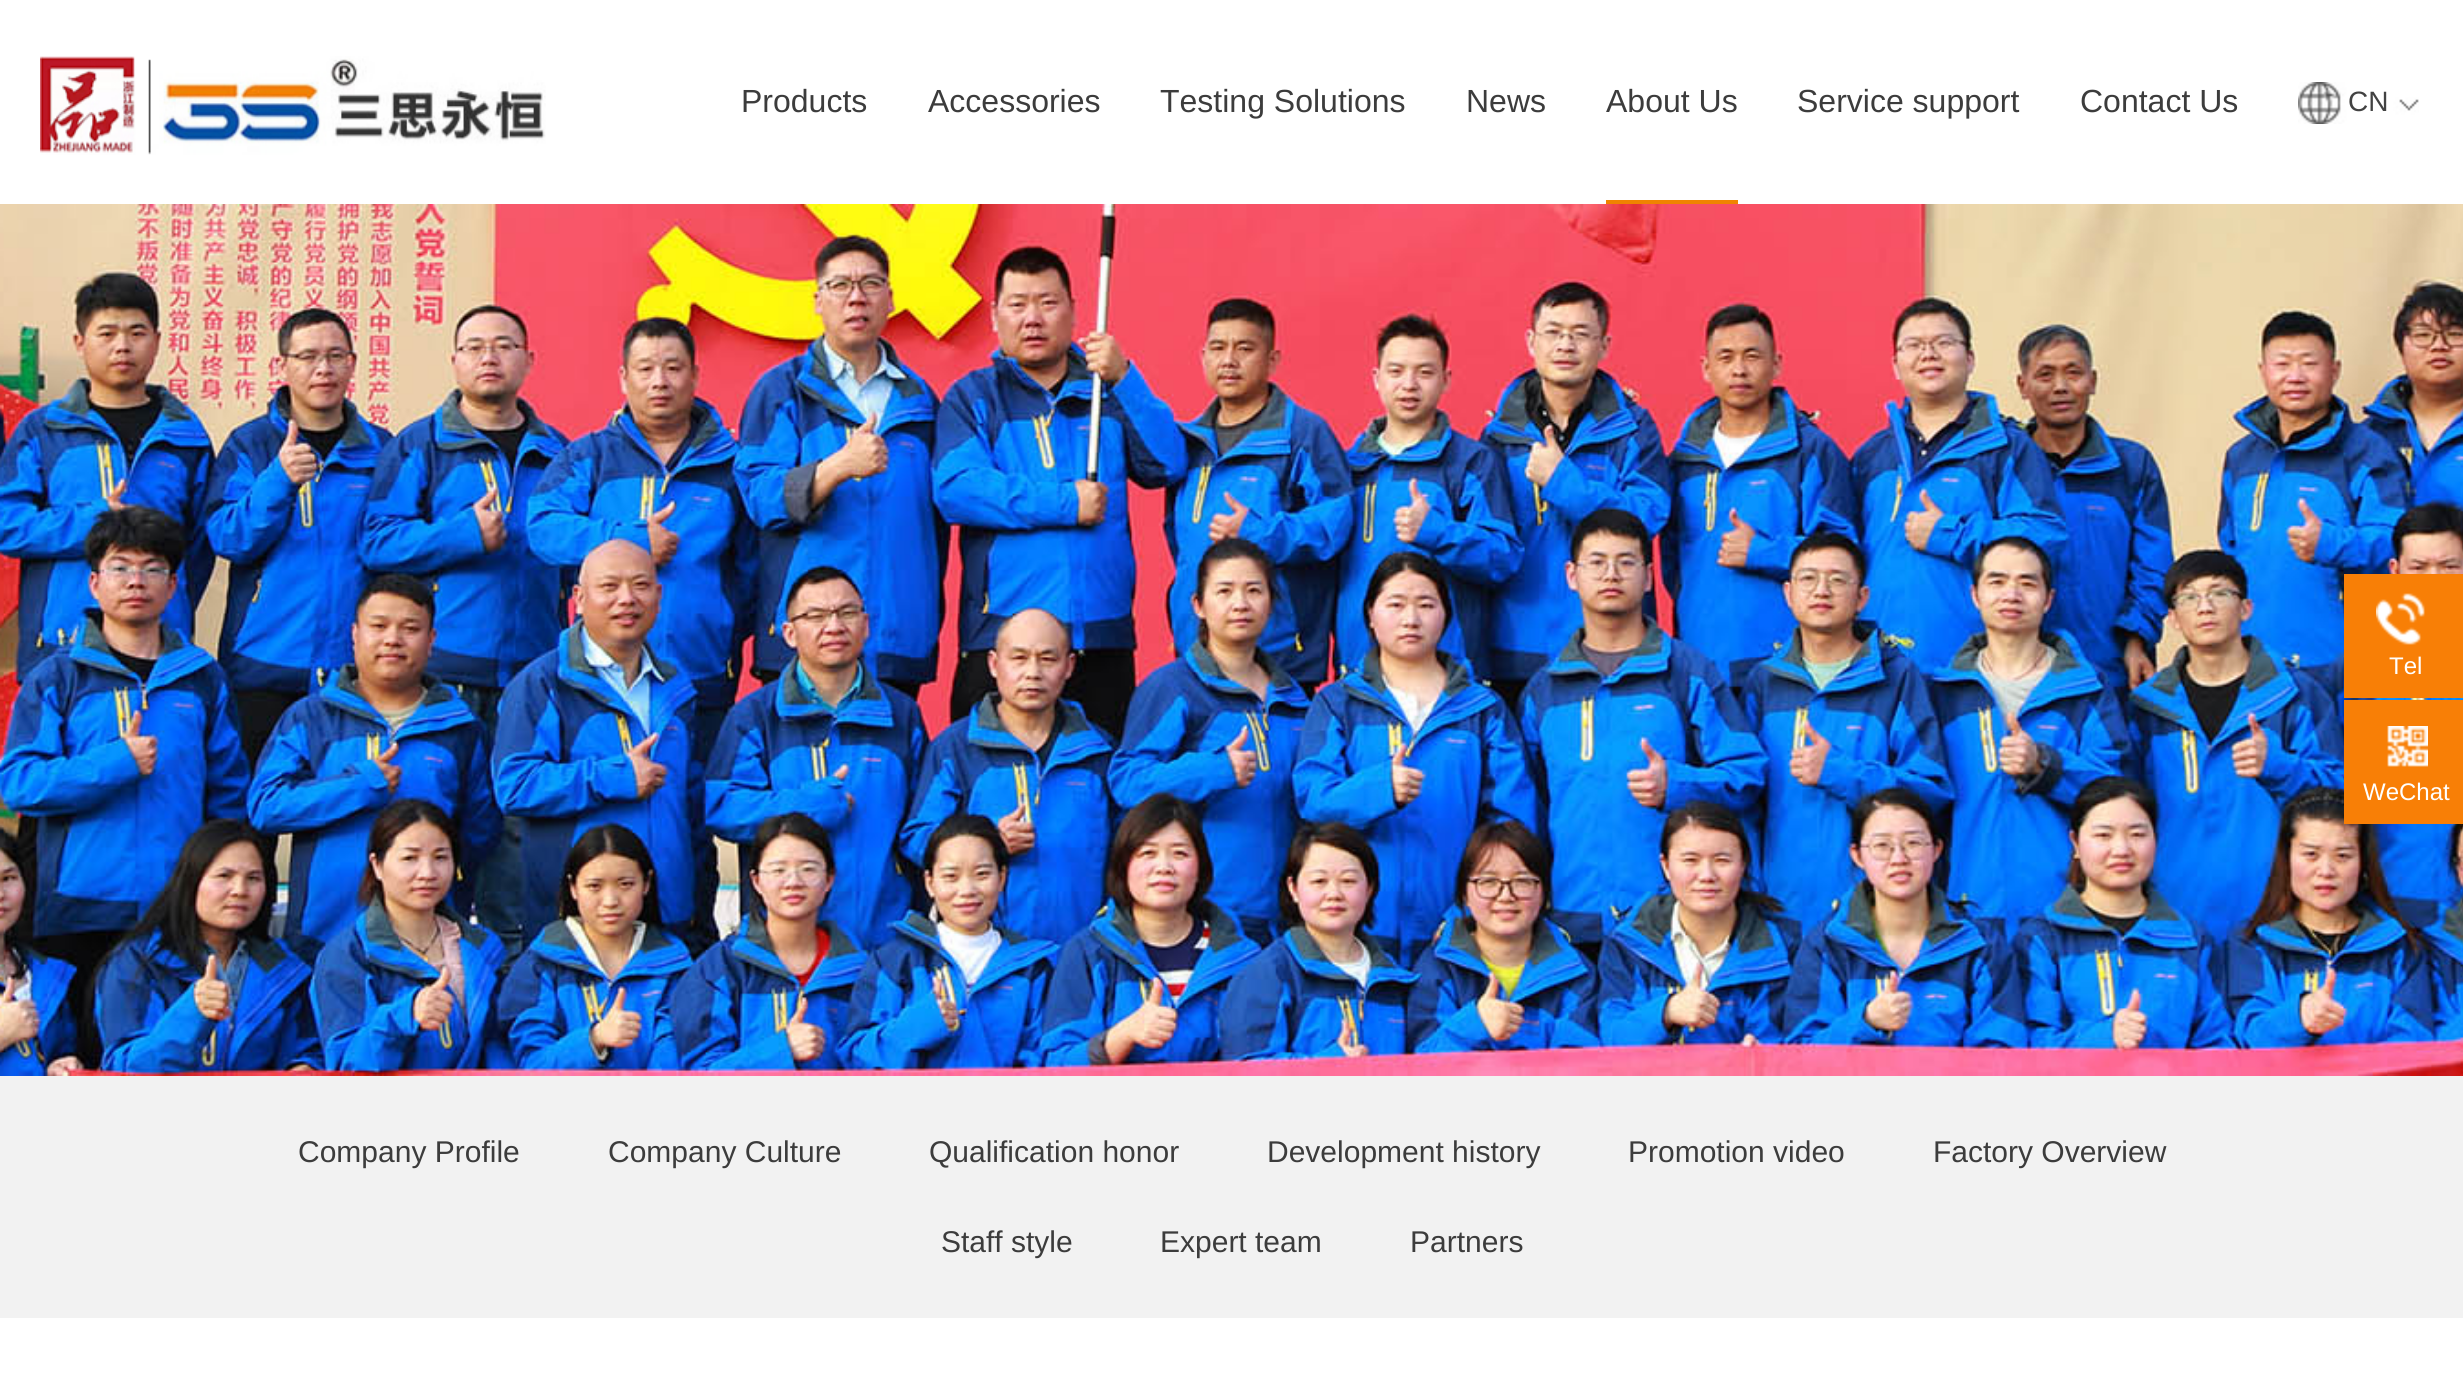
import math
import cairo

surface = cairo.ImageSurface(cairo.FORMAT_RGB24, 2463, 1396)
ctx = cairo.Context(surface)
options = cairo.FontOptions()
options.set_hint_metrics(cairo.HINT_METRICS_OFF)
options.set_hint_style(cairo.HINT_STYLE_NONE)
ctx.set_font_options(options)
ctx.set_miter_limit(4)


def picture(path, x, y, w, h):
    ctx.save()
    ctx.set_source_surface(cairo.ImageSurface.create_from_png(path), x, y)
    ctx.rectangle(x, y, w, h)
    ctx.fill()
    ctx.restore()


ctx.set_source_rgb(1, 1, 1)
ctx.paint()
picture("img1.png", 40, 56, 506, 99)
ctx.select_font_face("Liberation Sans")
ctx.set_font_size(32)
ctx.set_source_rgb(0.235, 0.235, 0.235)
ctx.move_to(741, 112)
ctx.show_text("Products")
ctx.move_to(928, 112)
ctx.show_text("Accessories")
ctx.move_to(1160, 112)
ctx.show_text("Testing Solutions")
ctx.move_to(1466, 112)
ctx.show_text("News")
ctx.move_to(1606, 112)
ctx.show_text("About Us")
ctx.set_source_rgb(0.941, 0.514, 0)
ctx.rectangle(1606, 200, 132, 4)
ctx.fill()
ctx.set_source_rgb(0.235, 0.235, 0.235)
ctx.move_to(1797, 112)
ctx.show_text("Service support")
ctx.move_to(2080, 112)
ctx.show_text("Contact Us")
picture("img2.png", 2298, 82, 121, 42)
ctx.set_font_size(28)
ctx.set_source_rgb(0.259, 0.259, 0.259)
ctx.move_to(2348, 111)
ctx.show_text("CN")
picture("img3.png", 0, 204, 2463, 872)
ctx.set_source_rgb(0.969, 0.498, 0.027)
ctx.rectangle(2344, 574, 119, 124)
ctx.fill()
picture("img4.png", 2376, 593, 49, 52)
ctx.set_font_size(24)
ctx.set_source_rgb(1, 1, 1)
ctx.move_to(2389, 674)
ctx.show_text("Tel")
ctx.set_source_rgb(0.969, 0.498, 0.027)
ctx.rectangle(2344, 700, 119, 124)
ctx.fill()
picture("img5.png", 2387, 726, 41, 41)
ctx.set_source_rgb(1, 1, 1)
ctx.move_to(2363, 800)
ctx.show_text("WeChat")
ctx.set_source_rgb(0.949, 0.949, 0.949)
ctx.rectangle(0, 1076, 2463, 242)
ctx.fill()
ctx.set_font_size(30)
ctx.set_source_rgb(0.235, 0.235, 0.235)
ctx.move_to(298, 1162)
ctx.show_text("Company Profile")
ctx.move_to(608, 1162)
ctx.show_text("Company Culture")
ctx.move_to(929, 1162)
ctx.show_text("Qualification honor")
ctx.move_to(1267, 1162)
ctx.show_text("Development history")
ctx.move_to(1628, 1162)
ctx.show_text("Promotion video")
ctx.move_to(1933, 1162)
ctx.show_text("Factory Overview")
ctx.move_to(941, 1252)
ctx.show_text("Staff style")
ctx.move_to(1160, 1252)
ctx.show_text("Expert team")
ctx.move_to(1410, 1252)
ctx.show_text("Partners")
surface.write_to_png("page.png")
